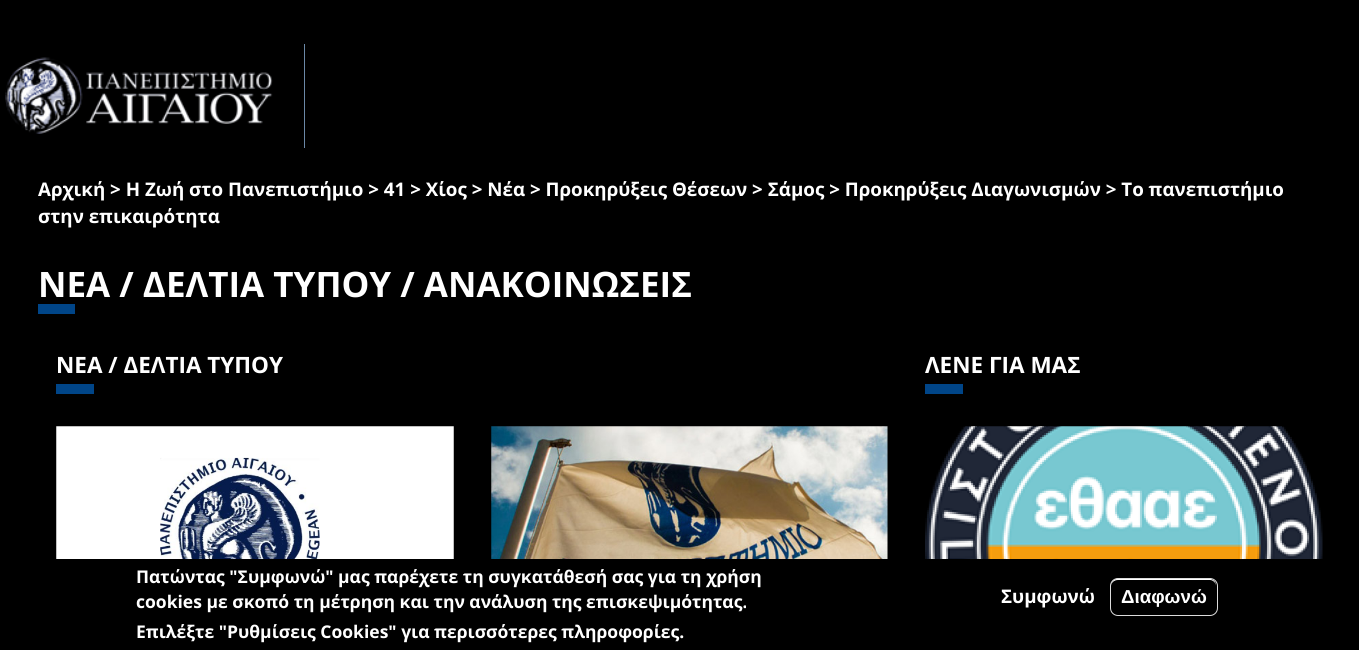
import math
import cairo

surface = cairo.ImageSurface(cairo.FORMAT_RGB24, 1359, 650)
ctx = cairo.Context(surface)
options = cairo.FontOptions()
options.set_hint_metrics(cairo.HINT_METRICS_OFF)
options.set_hint_style(cairo.HINT_STYLE_NONE)
ctx.set_font_options(options)
ctx.set_miter_limit(4)


def round_rect(x, y, w, h, r):
    ctx.new_sub_path()
    for i, (u, v) in enumerate([(x + w - r, y + h - r), (x + r, y + h - r), (x + r, y + r), (x + w - r, y + r)]):
        ctx.arc(u, v, r, i * math.pi / 2, (i + 1) * math.pi / 2)
    ctx.close_path()


def picture(path, x, y, w, h):
    ctx.save()
    ctx.set_source_surface(cairo.ImageSurface.create_from_png(path), x, y)
    ctx.rectangle(x, y, w, h)
    ctx.fill()
    ctx.restore()


ctx.set_source_rgb(0, 0, 0)
ctx.paint()
ctx.set_source_rgb(0.42, 0.533, 0.651)
ctx.rectangle(304, 44, 1, 104)
ctx.fill()
picture("img1.png", 5, 57, 268, 77)
ctx.select_font_face("Open Sans", cairo.FONT_SLANT_NORMAL, cairo.FONT_WEIGHT_BOLD)
ctx.set_font_size(18.75)
ctx.set_source_rgb(1, 1, 1)
ctx.move_to(38, 196)
ctx.show_text("Αρχική > Η Ζωή στο Πανεπιστήμιο > 41 > Χίος > Νέα > Προκηρύξεις Θέσεων > Σάμος > Προκηρύξεις Διαγωνισμών > Το πανεπιστήμιο")
ctx.move_to(38, 223)
ctx.show_text("στην επικαιρότητα")
ctx.set_font_size(35)
ctx.move_to(38, 297)
ctx.show_text("ΝΕΑ / ΔΕΛΤΙΑ ΤΥΠΟΥ / ΑΝΑΚΟΙΝΩΣΕΙΣ")
ctx.set_source_rgb(0, 0.271, 0.533)
ctx.rectangle(38, 304, 37, 10)
ctx.fill()
ctx.set_font_size(22.5)
ctx.set_source_rgb(1, 1, 1)
ctx.move_to(56, 373)
ctx.show_text("ΝΕΑ / ΔΕΛΤΙΑ ΤΥΠΟΥ")
ctx.set_source_rgb(0, 0.271, 0.533)
ctx.rectangle(56, 384, 38, 10)
ctx.fill()
picture("img2.png", 56, 426, 398, 133)
picture("img3.png", 491, 426, 397, 133)
ctx.set_source_rgb(1, 1, 1)
ctx.move_to(925, 373)
ctx.show_text("ΛΕΝΕ ΓΙΑ ΜΑΣ")
ctx.set_source_rgb(0, 0.271, 0.533)
ctx.rectangle(925, 384, 38, 10)
ctx.fill()
picture("img4.png", 925, 426, 398, 133)
ctx.set_font_size(17.5)
ctx.set_source_rgb(1, 1, 1)
ctx.move_to(136, 583)
ctx.show_text("Πατώντας \"Συμφωνώ\" μας παρέχετε τη συγκατάθεσή σας για τη χρήση")
ctx.move_to(136, 608)
ctx.show_text("cookies με σκοπό τη μέτρηση και την ανάλυση της επισκεψιμότητας.")
ctx.move_to(136, 638)
ctx.show_text("Επιλέξτε \"Ρυθμίσεις Cookies\" για περισσότερες πληροφορίες.")
ctx.set_font_size(18.75)
ctx.move_to(1001, 603)
ctx.show_text("Συμφωνώ")
ctx.new_path()
ctx.move_to(1118, 580)
ctx.line_to(1210, 580)
ctx.curve_to(1213, 580, 1216, 583, 1216, 586)
ctx.curve_to(1216, 575, 1201, 579, 1194, 579)
ctx.line_to(1132, 579)
ctx.curve_to(1126, 579, 1111, 575, 1111, 586)
ctx.curve_to(1111, 583, 1114, 580, 1118, 580)
ctx.close_path()
ctx.fill()
round_rect(1110.5, 578.5, 107, 37, 7.5)
ctx.set_source_rgb(0.863, 0.863, 0.863)
ctx.set_line_width(1)
ctx.stroke()
ctx.select_font_face("Liberation Sans", cairo.FONT_SLANT_NORMAL, cairo.FONT_WEIGHT_BOLD)
ctx.set_source_rgb(1, 1, 1)
ctx.move_to(1121, 603)
ctx.show_text("Διαφωνώ")
surface.write_to_png("page.png")
